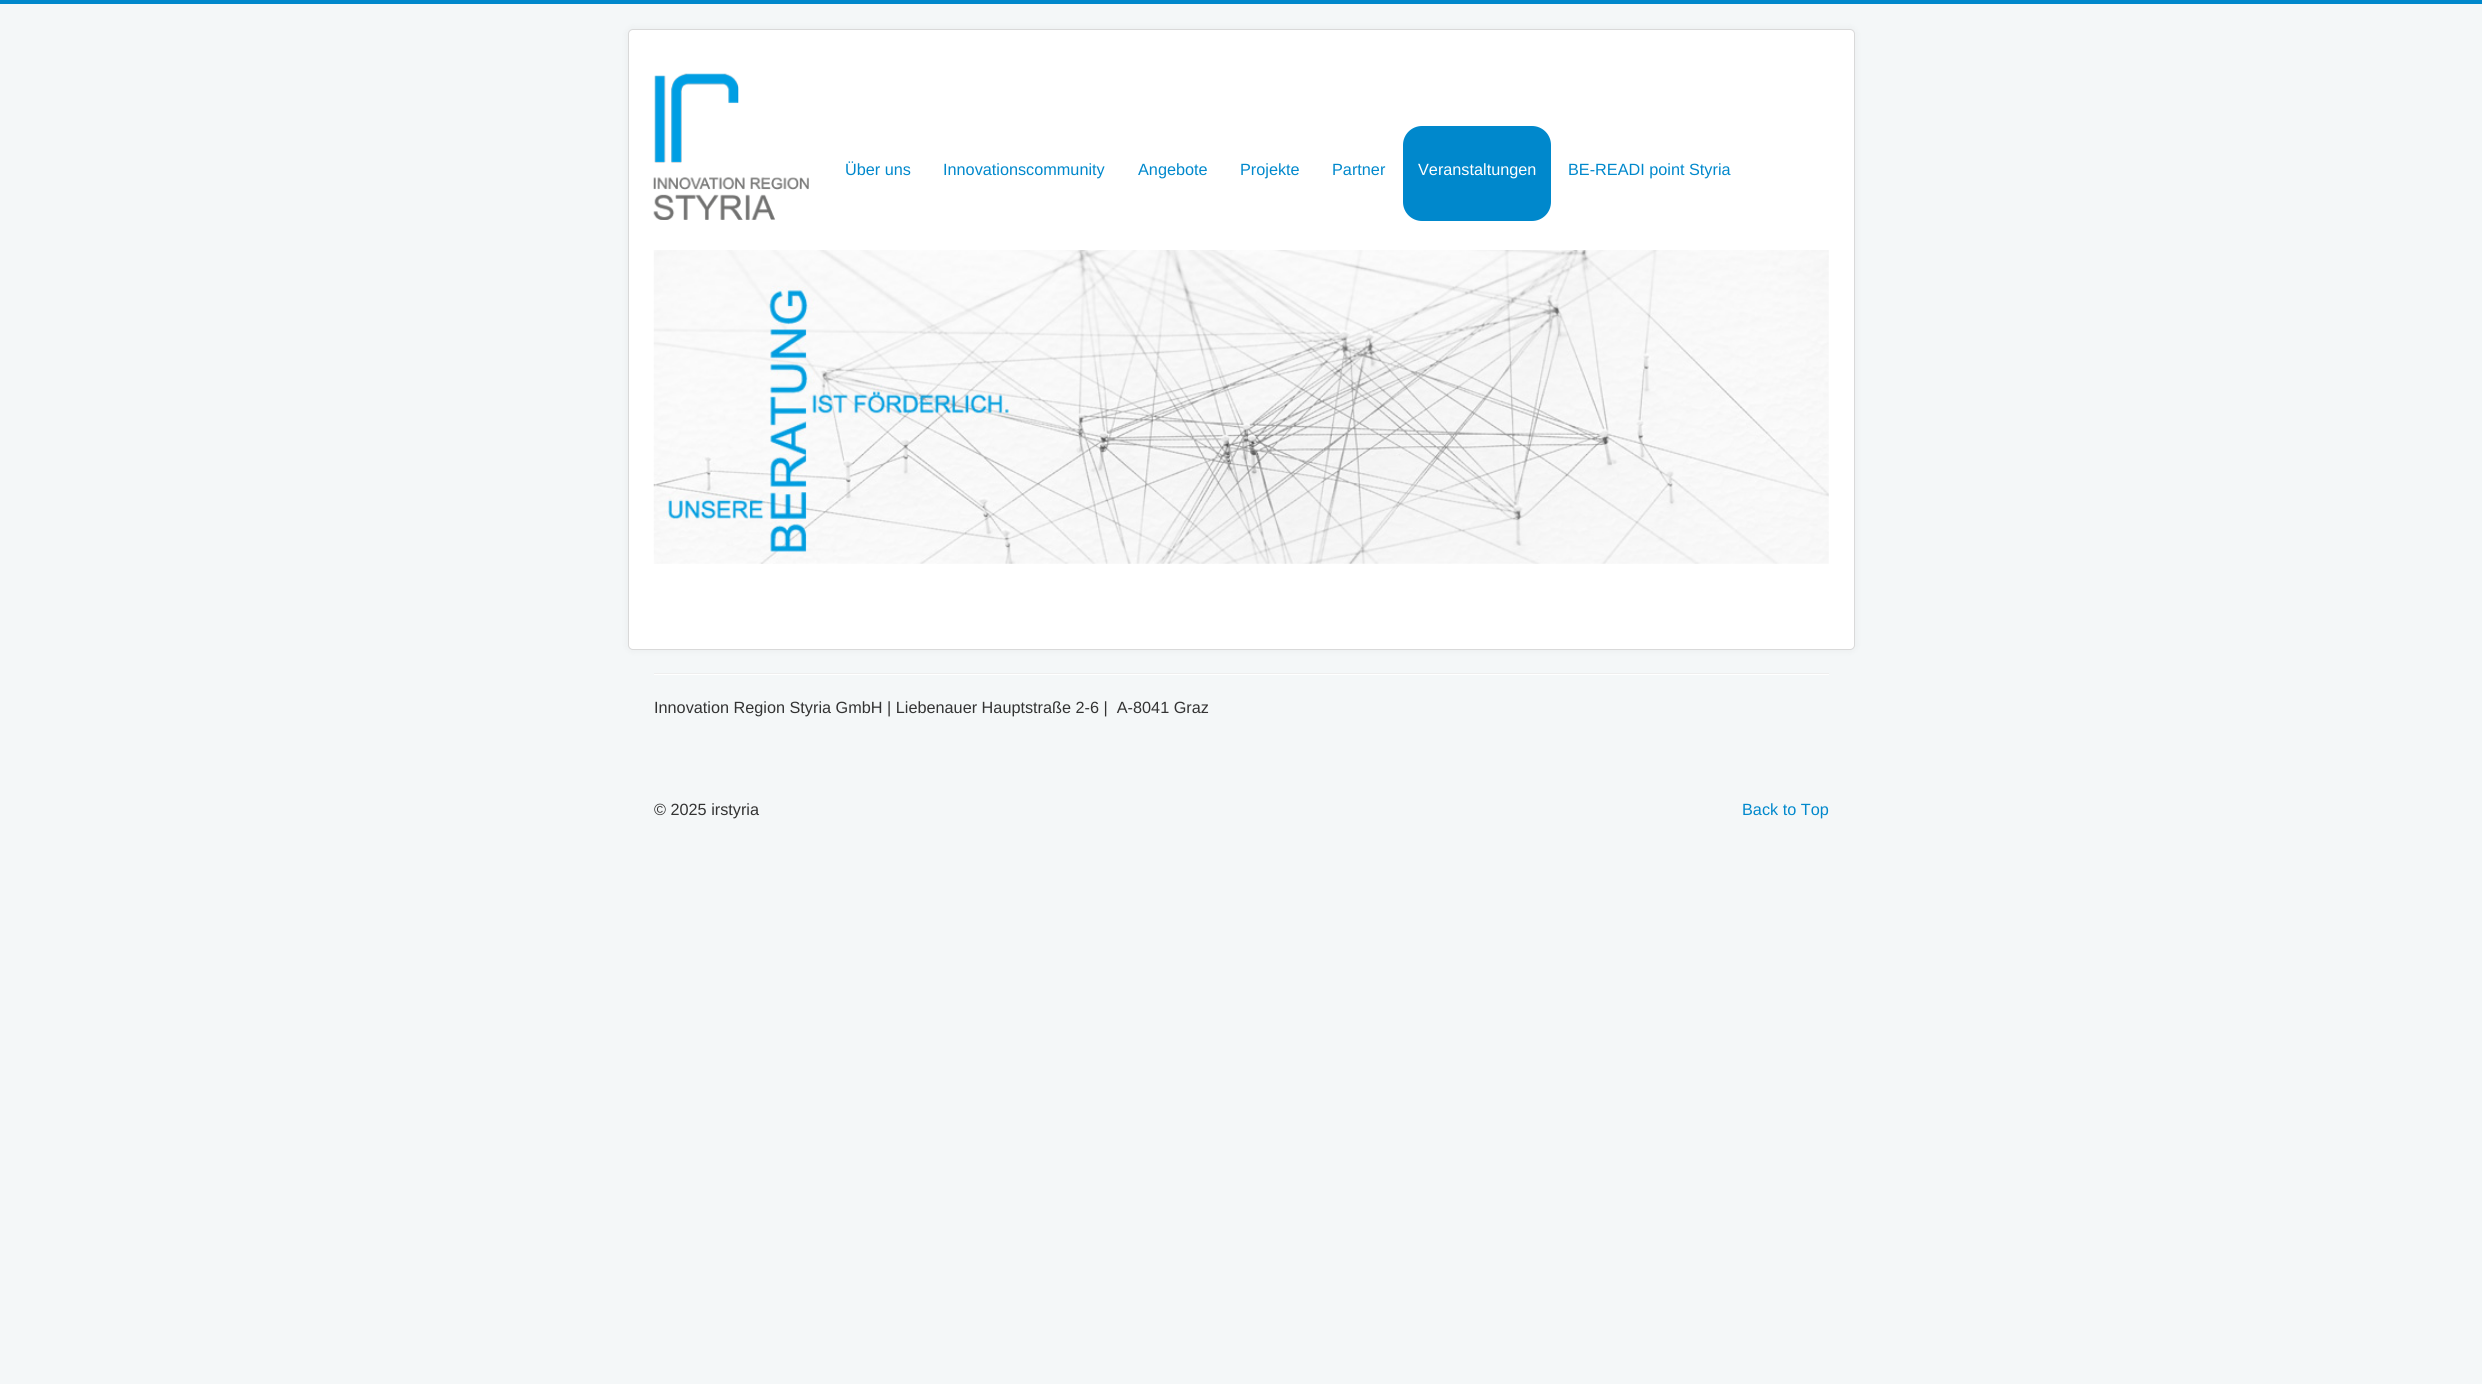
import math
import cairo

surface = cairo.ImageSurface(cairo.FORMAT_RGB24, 2482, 1384)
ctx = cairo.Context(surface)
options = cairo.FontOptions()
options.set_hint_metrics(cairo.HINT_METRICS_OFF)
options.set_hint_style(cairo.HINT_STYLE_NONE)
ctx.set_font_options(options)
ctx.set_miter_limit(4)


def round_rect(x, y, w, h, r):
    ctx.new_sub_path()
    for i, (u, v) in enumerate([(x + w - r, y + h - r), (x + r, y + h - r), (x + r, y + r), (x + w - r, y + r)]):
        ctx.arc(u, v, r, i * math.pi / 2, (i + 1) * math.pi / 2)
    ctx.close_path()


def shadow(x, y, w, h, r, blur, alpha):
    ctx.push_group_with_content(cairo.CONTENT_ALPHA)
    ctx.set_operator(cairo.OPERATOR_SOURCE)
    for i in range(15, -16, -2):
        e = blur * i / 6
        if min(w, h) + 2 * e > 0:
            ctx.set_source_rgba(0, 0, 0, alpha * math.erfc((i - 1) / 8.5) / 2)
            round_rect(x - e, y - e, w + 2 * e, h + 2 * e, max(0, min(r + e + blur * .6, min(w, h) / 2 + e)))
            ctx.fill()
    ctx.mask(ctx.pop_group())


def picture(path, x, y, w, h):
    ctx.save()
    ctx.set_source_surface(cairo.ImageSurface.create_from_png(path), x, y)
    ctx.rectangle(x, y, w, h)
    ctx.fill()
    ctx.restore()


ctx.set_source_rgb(0.957, 0.965, 0.969)
ctx.paint()
ctx.set_source_rgb(0, 0.533, 0.8)
ctx.rectangle(0, 0, 2482, 4)
ctx.fill()
ctx.set_source_rgb(0, 0, 0)
shadow(628, 29, 1227, 621, 5, 4, 0.05)
ctx.set_source_rgb(1, 1, 1)
round_rect(628, 29, 1227, 621, 5)
ctx.fill()
round_rect(628.5, 29.5, 1226, 620, 4.5)
ctx.set_source_rgba(0, 0, 0, 0.15)
ctx.set_line_width(1)
ctx.stroke()
picture("img1.png", 653, 73, 156, 147)
ctx.select_font_face("Liberation Sans")
ctx.set_font_size(16.25)
ctx.set_source_rgb(0, 0.533, 0.8)
ctx.move_to(845, 175)
ctx.show_text("Über uns")
ctx.move_to(943, 175)
ctx.show_text("Innovationscommunity")
ctx.move_to(1138, 175)
ctx.show_text("Angebote")
ctx.move_to(1240, 175)
ctx.show_text("Projekte")
ctx.move_to(1332, 175)
ctx.show_text("Partner")
round_rect(1403, 126, 148, 95, 19)
ctx.fill()
ctx.set_source_rgb(1, 1, 1)
ctx.move_to(1418, 175)
ctx.show_text("Veranstaltungen")
ctx.set_source_rgb(0, 0.533, 0.8)
ctx.move_to(1568, 175)
ctx.show_text("BE-READI point Styria")
picture("img2.png", 653, 250, 1176, 314)
ctx.set_source_rgb(0.933, 0.933, 0.933)
ctx.rectangle(654, 673, 1175, 1)
ctx.fill()
ctx.set_source_rgb(1, 1, 1)
ctx.rectangle(654, 674, 1175, 1)
ctx.fill()
ctx.set_source_rgb(0.2, 0.2, 0.2)
ctx.move_to(654, 713)
ctx.show_text("Innovation Region Styria GmbH | Liebenauer Hauptstraße 2-6 |  A-8041 Graz")
ctx.move_to(654, 815)
ctx.show_text("© 2025 irstyria")
ctx.set_source_rgb(0, 0.533, 0.8)
ctx.move_to(1742, 815)
ctx.show_text("Back to Top")
surface.write_to_png("page.png")
